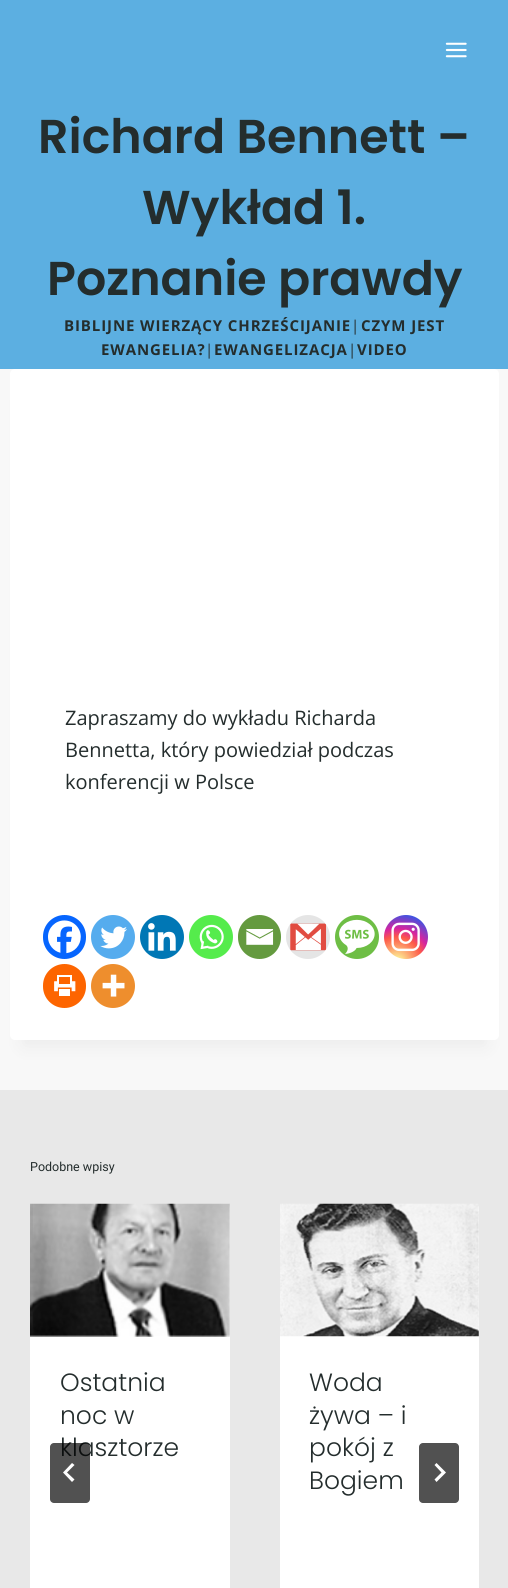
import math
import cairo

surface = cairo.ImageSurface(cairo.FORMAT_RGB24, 508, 1588)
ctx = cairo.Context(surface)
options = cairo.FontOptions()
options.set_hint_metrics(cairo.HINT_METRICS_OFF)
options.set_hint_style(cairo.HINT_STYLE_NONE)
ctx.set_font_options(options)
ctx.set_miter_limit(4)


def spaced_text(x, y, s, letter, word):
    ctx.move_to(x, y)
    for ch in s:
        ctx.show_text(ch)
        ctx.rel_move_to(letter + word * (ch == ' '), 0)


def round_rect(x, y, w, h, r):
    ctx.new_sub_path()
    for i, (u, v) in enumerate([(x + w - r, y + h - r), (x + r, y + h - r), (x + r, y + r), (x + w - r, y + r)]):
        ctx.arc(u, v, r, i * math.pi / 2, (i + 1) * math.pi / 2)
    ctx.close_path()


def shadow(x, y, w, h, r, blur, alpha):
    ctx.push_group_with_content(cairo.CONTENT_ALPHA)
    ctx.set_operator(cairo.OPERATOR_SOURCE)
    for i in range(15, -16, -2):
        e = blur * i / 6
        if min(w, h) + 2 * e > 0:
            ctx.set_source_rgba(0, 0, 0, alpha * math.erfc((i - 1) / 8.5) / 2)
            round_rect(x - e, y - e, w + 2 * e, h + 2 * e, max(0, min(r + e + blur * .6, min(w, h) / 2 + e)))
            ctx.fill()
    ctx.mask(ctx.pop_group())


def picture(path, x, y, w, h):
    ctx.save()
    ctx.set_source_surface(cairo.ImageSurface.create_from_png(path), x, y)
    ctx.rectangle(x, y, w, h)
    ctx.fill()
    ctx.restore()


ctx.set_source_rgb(0.969, 0.969, 0.969)
ctx.paint()
ctx.set_source_rgb(0.361, 0.686, 0.882)
ctx.rectangle(0, 0, 508, 369)
ctx.fill()
picture("img1.png", 445, 42, 22, 16)
ctx.select_font_face("Poppins SemiBold")
ctx.set_font_size(47.5)
ctx.set_source_rgb(0.141, 0.176, 0.176)
ctx.move_to(38, 153)
ctx.show_text("Richard Bennett –")
ctx.move_to(142, 224)
ctx.show_text("Wykład 1.")
ctx.move_to(47, 295)
ctx.show_text("Poznanie prawdy")
ctx.select_font_face("Open Sans", cairo.FONT_SLANT_NORMAL, cairo.FONT_WEIGHT_BOLD)
ctx.set_font_size(15)
spaced_text(64, 331, "BIBLIJNE WIERZĄCY CHRZEŚCIJANIE", 0.9, 0)
ctx.select_font_face("Open Sans")
spaced_text(351, 331, "|", 0.9, 0)
ctx.select_font_face("Open Sans", cairo.FONT_SLANT_NORMAL, cairo.FONT_WEIGHT_BOLD)
spaced_text(361, 331, "CZYM JEST", 0.9, 0)
spaced_text(101, 355, "EWANGELIA?", 0.9, 0)
ctx.select_font_face("Open Sans")
spaced_text(205, 355, "|", 0.9, 0)
ctx.select_font_face("Open Sans", cairo.FONT_SLANT_NORMAL, cairo.FONT_WEIGHT_BOLD)
spaced_text(214, 355, "EWANGELIZACJA", 0.9, 0)
ctx.select_font_face("Open Sans")
spaced_text(348, 355, "|", 0.9, 0)
ctx.select_font_face("Open Sans", cairo.FONT_SLANT_NORMAL, cairo.FONT_WEIGHT_BOLD)
spaced_text(357, 355, "VIDEO", 0.9, 0)
ctx.set_source_rgb(0, 0, 0)
shadow(23, 400, 463, 646, 0, 9.5, 0.05)
ctx.set_source_rgb(1, 1, 1)
round_rect(10, 369, 489, 671, 5)
ctx.fill()
ctx.select_font_face("Open Sans")
ctx.set_font_size(20)
ctx.set_source_rgb(0.141, 0.176, 0.176)
ctx.move_to(65, 725)
ctx.show_text("Zapraszamy do wykładu Richarda")
ctx.move_to(65, 757)
ctx.show_text("Bennetta, który powiedział podczas")
ctx.move_to(65, 789)
ctx.show_text("konferencji w Polsce")
ctx.set_source_rgb(0.027, 0.396, 0.996)
round_rect(43, 915, 43, 44, 21.5)
ctx.fill()
picture("img2.png", 48, 920, 33, 34)
ctx.set_source_rgb(0.333, 0.675, 0.933)
ctx.arc(113, 937, 22, 0, 2 * math.pi)
ctx.fill()
picture("img3.png", 100, 926, 27, 23)
ctx.set_source_rgb(0, 0.467, 0.71)
ctx.arc(162, 937, 22, 0, 2 * math.pi)
ctx.fill()
picture("img4.png", 148, 923, 28, 28)
ctx.set_source_rgb(0.333, 0.922, 0.298)
ctx.arc(211, 937, 22, 0, 2 * math.pi)
ctx.fill()
picture("img5.png", 199, 924, 25, 26)
ctx.set_source_rgb(0.392, 0.604, 0.247)
round_rect(238, 915, 43, 44, 21.5)
ctx.fill()
picture("img6.png", 246, 929, 28, 16)
ctx.set_source_rgb(0.898, 0.898, 0.898)
ctx.arc(308, 937, 22, 0, 2 * math.pi)
ctx.fill()
picture("img7.png", 290, 923, 37, 28)
ctx.set_source_rgb(0.431, 0.745, 0.271)
ctx.arc(357, 937, 22, 0, 2 * math.pi)
ctx.fill()
picture("img8.png", 339, 919, 36, 35)
gradient = cairo.RadialGradient(397, 962, 0, 397, 962, 56)
gradient.add_color_stop_rgba(0, 0.992, 0.957, 0.592, 1)
gradient.add_color_stop_rgba(0.05, 0.992, 0.957, 0.592, 1)
gradient.add_color_stop_rgba(0.45, 0.992, 0.349, 0.286, 1)
gradient.add_color_stop_rgba(0.6, 0.839, 0.141, 0.624, 1)
gradient.add_color_stop_rgba(0.9, 0.157, 0.353, 0.922, 1)
ctx.set_source(gradient)
ctx.arc(406, 937, 22, 0, 2 * math.pi)
ctx.fill()
picture("img9.png", 391, 922, 29, 30)
ctx.set_source_rgb(0.992, 0.396, 0)
round_rect(43, 964, 43, 44, 21.5)
ctx.fill()
picture("img10.png", 54, 975, 22, 21)
ctx.set_source_rgb(0.933, 0.557, 0.176)
ctx.arc(113, 986, 22, 0, 2 * math.pi)
ctx.fill()
picture("img11.png", 102, 974, 23, 23)
ctx.set_source_rgb(0.91, 0.91, 0.91)
ctx.rectangle(0, 1090, 508, 498)
ctx.fill()
ctx.select_font_face("Roboto")
ctx.set_font_size(12.5)
ctx.set_source_rgb(0.141, 0.176, 0.176)
ctx.move_to(30, 1171)
ctx.show_text("Podobne wpisy")
ctx.set_source_rgb(1, 1, 1)
round_rect(30, 1204, 200, 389, 5)
ctx.fill()
picture("img12.png", 30, 1203, 200, 134)
ctx.select_font_face("Poppins Light")
ctx.set_font_size(25)
ctx.set_source_rgb(0.141, 0.176, 0.176)
ctx.move_to(60, 1391)
ctx.show_text("Ostatnia")
ctx.move_to(60, 1424)
ctx.show_text("noc w")
ctx.move_to(60, 1456)
ctx.show_text("klasztorze")
ctx.set_source_rgb(1, 1, 1)
round_rect(280, 1204, 199, 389, 5)
ctx.fill()
picture("img13.png", 280, 1203, 199, 134)
ctx.set_source_rgb(0.141, 0.176, 0.176)
ctx.move_to(309, 1391)
ctx.show_text("Woda")
ctx.move_to(309, 1424)
ctx.show_text("żywa – i")
ctx.move_to(309, 1456)
ctx.show_text("pokój z")
ctx.move_to(309, 1489)
ctx.show_text("Bogiem")
ctx.set_source_rgba(0, 0, 0, 0.68)
round_rect(50, 1443, 40, 60, 4)
ctx.fill()
ctx.set_source_rgb(1, 1, 1)
ctx.new_path()
ctx.move_to(72, 1463)
ctx.line_to(74.5, 1465)
ctx.line_to(67, 1472.5)
ctx.line_to(74.5, 1479.5)
ctx.line_to(72, 1482)
ctx.line_to(63, 1472.5)
ctx.close_path()
ctx.fill()
ctx.set_source_rgb(0.318, 0.318, 0.318)
round_rect(419, 1443, 40, 60, 4)
ctx.fill()
ctx.set_source_rgb(1, 1, 1)
ctx.new_path()
ctx.move_to(436.5, 1463)
ctx.line_to(434.5, 1465)
ctx.line_to(441.5, 1472.5)
ctx.line_to(434.5, 1479.5)
ctx.line_to(436.5, 1482)
ctx.line_to(446, 1472.5)
ctx.close_path()
ctx.fill()
surface.write_to_png("page.png")
